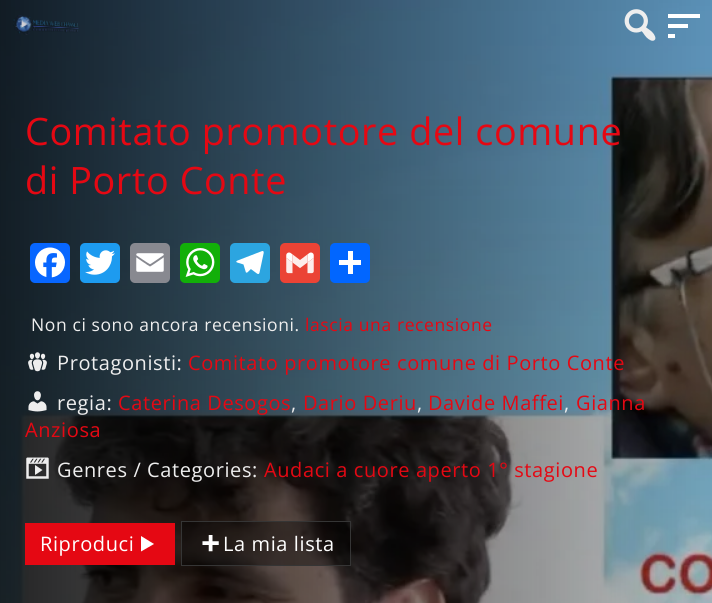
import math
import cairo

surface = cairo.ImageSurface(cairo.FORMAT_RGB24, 712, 603)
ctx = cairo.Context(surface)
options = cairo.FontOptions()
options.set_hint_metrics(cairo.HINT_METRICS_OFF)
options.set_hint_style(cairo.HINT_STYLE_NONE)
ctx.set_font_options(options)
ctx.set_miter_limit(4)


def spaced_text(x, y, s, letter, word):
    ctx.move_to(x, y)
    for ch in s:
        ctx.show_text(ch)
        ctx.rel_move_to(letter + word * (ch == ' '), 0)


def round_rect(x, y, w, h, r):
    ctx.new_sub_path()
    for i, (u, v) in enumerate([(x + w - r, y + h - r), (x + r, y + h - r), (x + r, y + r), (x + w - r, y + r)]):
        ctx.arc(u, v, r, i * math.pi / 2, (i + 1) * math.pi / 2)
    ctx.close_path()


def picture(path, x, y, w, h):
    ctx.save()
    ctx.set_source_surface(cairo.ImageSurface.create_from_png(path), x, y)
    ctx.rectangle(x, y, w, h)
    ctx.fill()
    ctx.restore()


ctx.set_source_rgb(1, 1, 1)
ctx.paint()
picture("img3.png", 0, 0, 712, 603)
picture("img1.png", 13, 15, 66, 20)
picture("img2.png", 624, 9, 32, 32)
ctx.set_source_rgb(1, 1, 1)
ctx.rectangle(668, 24, 20, 4)
ctx.fill()
ctx.rectangle(668, 14, 32, 4)
ctx.fill()
ctx.rectangle(668, 34, 7, 4)
ctx.fill()
ctx.select_font_face("Open Sans")
ctx.set_font_size(37.75)
ctx.set_source_rgb(0.898, 0.035, 0.078)
spaced_text(25, 145, "Comitato promotore del comune", 0.6, 0)
spaced_text(25, 194, "di Porto Conte", 0.6, 0)
ctx.set_source_rgb(0.031, 0.4, 1)
round_rect(30, 243, 40, 40, 5)
ctx.fill()
picture("img4.png", 35, 247, 30, 31)
ctx.set_source_rgb(0.114, 0.608, 0.941)
round_rect(80, 243, 40, 40, 5)
ctx.fill()
picture("img5.png", 85, 250, 30, 25)
ctx.set_source_rgb(0.533, 0.537, 0.565)
round_rect(130, 243, 40, 40, 5)
ctx.fill()
picture("img6.png", 136, 253, 28, 19)
ctx.set_source_rgb(0.071, 0.686, 0.039)
round_rect(180, 243, 40, 40, 5)
ctx.fill()
picture("img7.png", 185, 248, 30, 29)
ctx.set_source_rgb(0.173, 0.647, 0.878)
round_rect(230, 243, 40, 40, 5)
ctx.fill()
picture("img8.png", 236, 251, 28, 23)
ctx.set_source_rgb(0.918, 0.263, 0.208)
round_rect(280, 243, 40, 40, 5)
ctx.fill()
picture("img9.png", 286, 252, 28, 22)
ctx.set_source_rgb(0.004, 0.4, 1)
round_rect(330, 243, 40, 40, 5)
ctx.fill()
ctx.set_source_rgb(1, 1, 1)
ctx.rectangle(348, 251, 5, 23)
ctx.fill()
ctx.rectangle(339, 260, 22, 5)
ctx.fill()
ctx.set_font_size(17.5)
ctx.set_source_rgb(0.933, 0.933, 0.933)
spaced_text(31, 331, "Non ci sono ancora recensioni.", 0.6, 0)
ctx.set_source_rgb(0.898, 0.035, 0.078)
spaced_text(305, 331, "lascia una recensione", 0.6, 0)
picture("img10.png", 28, 352, 19, 20)
ctx.set_font_size(20)
ctx.set_source_rgb(0.933, 0.933, 0.933)
spaced_text(57, 370, "Protagonisti:", 0.6, 0)
ctx.set_source_rgb(0.898, 0.035, 0.078)
spaced_text(188, 370, "Comitato promotore comune di Porto Conte", 0.6, 0)
picture("img11.png", 28, 391, 19, 21)
ctx.set_source_rgb(0.933, 0.933, 0.933)
spaced_text(57, 410, "regia:", 0.6, 0)
ctx.set_source_rgb(0.898, 0.035, 0.078)
spaced_text(118, 410, "Caterina Desogos", 0.6, 0)
ctx.set_source_rgb(0.933, 0.933, 0.933)
spaced_text(291, 410, ",", 0.6, 0)
ctx.set_source_rgb(0.898, 0.035, 0.078)
spaced_text(303, 410, "Dario Deriu", 0.6, 0)
ctx.set_source_rgb(0.933, 0.933, 0.933)
spaced_text(417, 410, ",", 0.6, 0)
ctx.set_source_rgb(0.898, 0.035, 0.078)
spaced_text(428, 410, "Davide Maffei", 0.6, 0)
ctx.set_source_rgb(0.933, 0.933, 0.933)
spaced_text(564, 410, ",", 0.6, 0)
ctx.set_source_rgb(0.898, 0.035, 0.078)
spaced_text(576, 410, "Gianna", 0.6, 0)
spaced_text(25, 437, "Anziosa", 0.6, 0)
picture("img12.png", 26, 457, 23, 22)
ctx.set_source_rgb(0.933, 0.933, 0.933)
spaced_text(57, 477, "Genres / Categories:", 0.6, 0)
ctx.set_source_rgb(0.898, 0.035, 0.078)
spaced_text(264, 477, "Audaci a cuore aperto 1° stagione", 0.6, 0)
ctx.rectangle(25, 523, 150, 42)
ctx.fill()
ctx.set_source_rgb(1, 1, 1)
spaced_text(40, 551, "Riproduci", 0.6, 0)
ctx.new_path()
ctx.move_to(141, 536)
ctx.line_to(154, 544)
ctx.line_to(141, 551.5)
ctx.close_path()
ctx.fill()
ctx.set_source_rgba(0, 0, 0, 0.4)
ctx.rectangle(181.5, 521.5, 169, 44)
ctx.fill_preserve()
ctx.set_source_rgb(0.208, 0.208, 0.208)
ctx.set_line_width(1)
ctx.stroke()
picture("img13.png", 202, 535, 17, 17)
ctx.set_source_rgb(1, 1, 1)
spaced_text(223, 551, "La mia lista", 0.6, 0)
surface.write_to_png("page.png")
